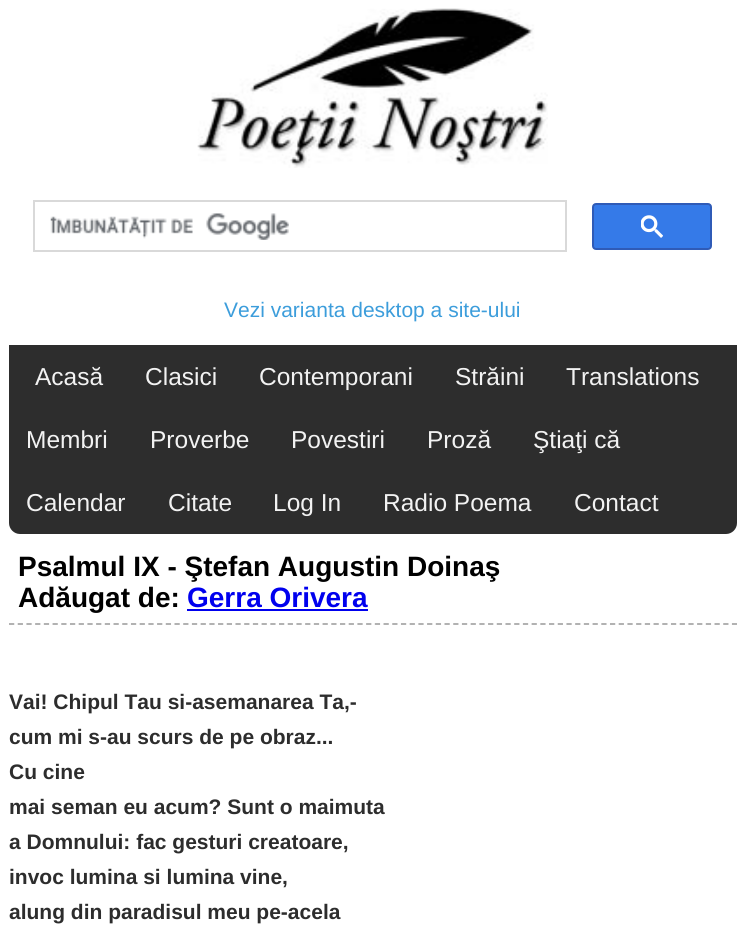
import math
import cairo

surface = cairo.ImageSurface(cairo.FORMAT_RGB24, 744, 935)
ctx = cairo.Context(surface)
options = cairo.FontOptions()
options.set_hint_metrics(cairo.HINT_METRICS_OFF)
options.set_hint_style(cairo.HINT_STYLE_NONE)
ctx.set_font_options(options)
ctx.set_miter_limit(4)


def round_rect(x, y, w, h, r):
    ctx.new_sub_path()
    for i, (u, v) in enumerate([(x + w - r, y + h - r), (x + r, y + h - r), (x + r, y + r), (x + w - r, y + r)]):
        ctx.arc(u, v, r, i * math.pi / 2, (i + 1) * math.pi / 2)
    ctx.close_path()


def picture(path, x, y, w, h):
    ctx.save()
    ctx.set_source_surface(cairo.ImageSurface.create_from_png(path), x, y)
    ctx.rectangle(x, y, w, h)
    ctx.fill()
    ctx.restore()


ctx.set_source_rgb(1, 1, 1)
ctx.paint()
picture("img1.png", 197, 8, 351, 160)
ctx.rectangle(34, 201, 532, 50)
ctx.set_source_rgb(0.851, 0.851, 0.851)
ctx.stroke()
picture("img2.png", 50, 213, 239, 27)
ctx.set_source_rgb(0.208, 0.478, 0.91)
round_rect(593, 204, 118, 45, 3)
ctx.fill_preserve()
ctx.set_source_rgb(0.184, 0.357, 0.718)
ctx.stroke()
picture("img3.png", 641, 215, 22, 23)
ctx.select_font_face("Liberation Sans")
ctx.set_font_size(21)
ctx.set_source_rgb(0.235, 0.616, 0.859)
ctx.move_to(224, 317)
ctx.show_text("Vezi varianta desktop a site-ului")
ctx.set_source_rgb(0.176, 0.176, 0.176)
ctx.new_path()
ctx.move_to(9, 345)
ctx.line_to(737, 345)
ctx.line_to(737, 523)
ctx.curve_to(737, 529, 732, 534, 726, 534)
ctx.line_to(20, 534)
ctx.curve_to(14, 534, 9, 529, 9, 523)
ctx.close_path()
ctx.fill()
ctx.set_font_size(24.5)
ctx.set_source_rgb(0.949, 0.949, 0.949)
ctx.move_to(35, 385)
ctx.show_text("Acasă")
ctx.move_to(145, 385)
ctx.show_text("Clasici")
ctx.move_to(259, 385)
ctx.show_text("Contemporani")
ctx.move_to(455, 385)
ctx.show_text("Străini")
ctx.move_to(566, 385)
ctx.show_text("Translations")
ctx.move_to(26, 448)
ctx.show_text("Membri")
ctx.move_to(150, 448)
ctx.show_text("Proverbe")
ctx.move_to(291, 448)
ctx.show_text("Povestiri")
ctx.move_to(427, 448)
ctx.show_text("Proză")
ctx.move_to(533, 448)
ctx.show_text("Ştiaţi că")
ctx.move_to(26, 511)
ctx.show_text("Calendar")
ctx.move_to(168, 511)
ctx.show_text("Citate")
ctx.move_to(273, 511)
ctx.show_text("Log In")
ctx.move_to(383, 511)
ctx.show_text("Radio Poema")
ctx.move_to(574, 511)
ctx.show_text("Contact")
ctx.new_path()
ctx.move_to(9, 624)
ctx.line_to(737, 624)
ctx.set_source_rgb(0.667, 0.667, 0.667)
ctx.set_line_width(1.8)
ctx.set_dash([5.25, 3.46])
ctx.stroke()
ctx.select_font_face("Liberation Sans", cairo.FONT_SLANT_NORMAL, cairo.FONT_WEIGHT_BOLD)
ctx.set_font_size(28)
ctx.set_source_rgb(0, 0, 0)
ctx.move_to(18, 576)
ctx.show_text("Psalmul IX - Ştefan Augustin Doinaş")
ctx.move_to(18, 607)
ctx.show_text("Adăugat de:")
ctx.set_source_rgb(0, 0, 0.933)
ctx.move_to(187, 607)
ctx.show_text("Gerra Orivera")
ctx.rectangle(187, 609, 181, 2)
ctx.fill()
ctx.set_font_size(21)
ctx.set_source_rgb(0.176, 0.176, 0.176)
ctx.move_to(9, 709)
ctx.show_text("Vai! Chipul Tau si-asemanarea Ta,-")
ctx.move_to(9, 744)
ctx.show_text("cum mi s-au scurs de pe obraz...")
ctx.move_to(9, 779)
ctx.show_text("Cu cine")
ctx.move_to(9, 814)
ctx.show_text("mai seman eu acum? Sunt o maimuta")
ctx.move_to(9, 849)
ctx.show_text("a Domnului: fac gesturi creatoare,")
ctx.move_to(9, 884)
ctx.show_text("invoc lumina si lumina vine,")
ctx.move_to(9, 919)
ctx.show_text("alung din paradisul meu pe-acela")
surface.write_to_png("page.png")
